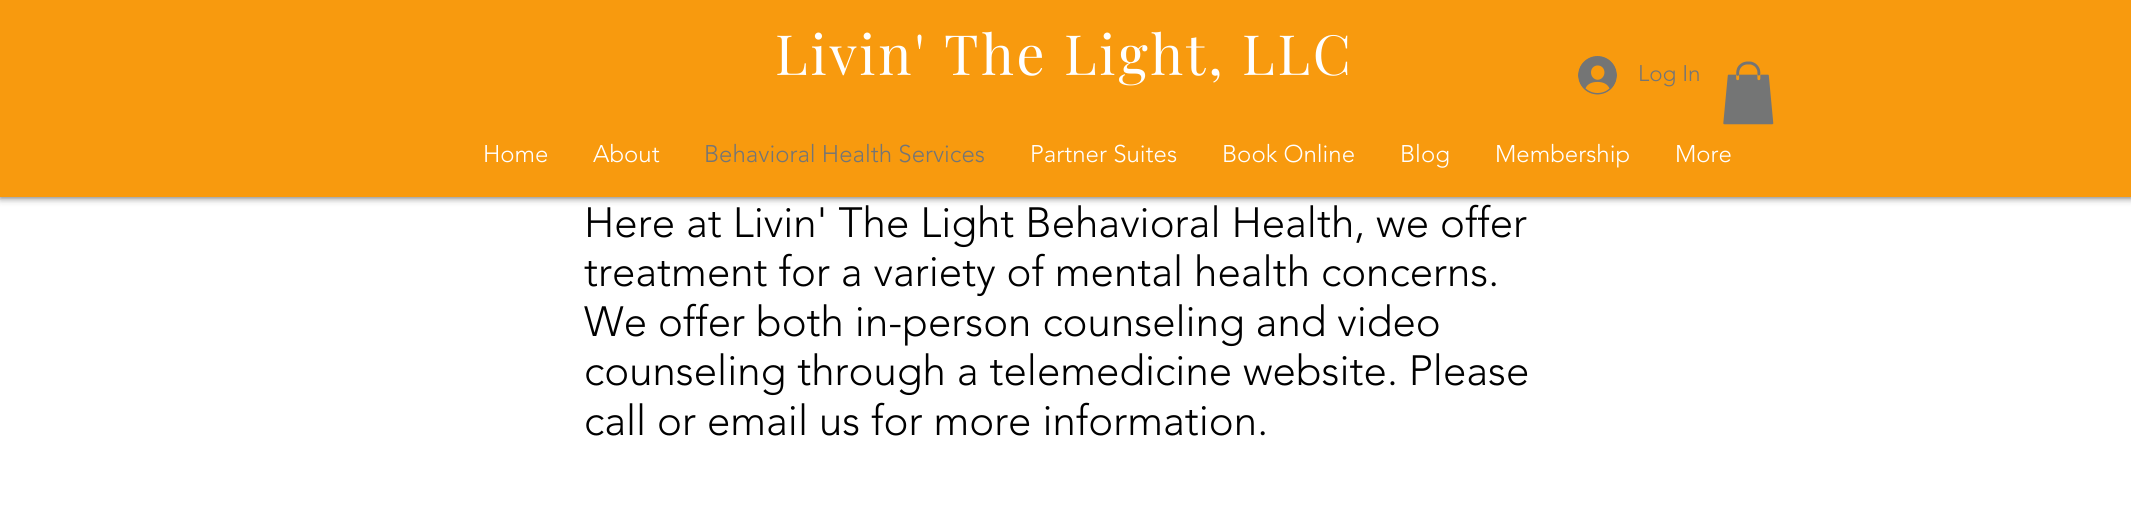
import math
import cairo

surface = cairo.ImageSurface(cairo.FORMAT_RGB24, 2131, 507)
ctx = cairo.Context(surface)
options = cairo.FontOptions()
options.set_hint_metrics(cairo.HINT_METRICS_OFF)
options.set_hint_style(cairo.HINT_STYLE_NONE)
ctx.set_font_options(options)
ctx.set_miter_limit(4)


def spaced_text(x, y, s, letter, word):
    ctx.move_to(x, y)
    for ch in s:
        ctx.show_text(ch)
        ctx.rel_move_to(letter + word * (ch == ' '), 0)


def round_rect(x, y, w, h, r):
    ctx.new_sub_path()
    for i, (u, v) in enumerate([(x + w - r, y + h - r), (x + r, y + h - r), (x + r, y + r), (x + w - r, y + r)]):
        ctx.arc(u, v, r, i * math.pi / 2, (i + 1) * math.pi / 2)
    ctx.close_path()


def shadow(x, y, w, h, r, blur, alpha):
    ctx.push_group_with_content(cairo.CONTENT_ALPHA)
    ctx.set_operator(cairo.OPERATOR_SOURCE)
    for i in range(15, -16, -2):
        e = blur * i / 6
        if min(w, h) + 2 * e > 0:
            ctx.set_source_rgba(0, 0, 0, alpha * math.erfc((i - 1) / 8.5) / 2)
            round_rect(x - e, y - e, w + 2 * e, h + 2 * e, max(0, min(r + e + blur * .6, min(w, h) / 2 + e)))
            ctx.fill()
    ctx.mask(ctx.pop_group())


def picture(path, x, y, w, h):
    ctx.save()
    ctx.set_source_surface(cairo.ImageSurface.create_from_png(path), x, y)
    ctx.rectangle(x, y, w, h)
    ctx.fill()
    ctx.restore()


ctx.set_source_rgb(1, 1, 1)
ctx.paint()
ctx.set_source_rgb(0, 0, 0)
shadow(0, 0, 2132, 197, 0, 4, 0.7)
ctx.set_source_rgb(0.969, 0.604, 0.055)
ctx.rectangle(0, 0, 2131, 197)
ctx.fill()
ctx.select_font_face("Playfair Display")
ctx.set_font_size(55.5)
ctx.set_source_rgb(1, 1, 1)
spaced_text(775, 75, "Livin' The Light, LLC", 2.75, 0)
picture("img1.png", 1578, 56, 39, 39)
ctx.select_font_face("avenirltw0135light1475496 Light")
ctx.set_font_size(22.5)
ctx.set_source_rgb(0.455, 0.459, 0.459)
ctx.move_to(1638, 81)
ctx.show_text("Log In")
picture("img2.png", 1723, 61, 51, 64)
ctx.set_font_size(24)
ctx.set_source_rgb(1, 1, 1)
ctx.move_to(483, 162)
ctx.show_text("Home")
ctx.move_to(593, 162)
ctx.show_text("About")
ctx.set_source_rgb(0.455, 0.459, 0.459)
ctx.move_to(704, 162)
ctx.show_text("Behavioral Health Services")
ctx.set_source_rgb(1, 1, 1)
ctx.move_to(1030, 162)
ctx.show_text("Partner Suites")
ctx.move_to(1222, 162)
ctx.show_text("Book Online")
ctx.move_to(1400, 162)
ctx.show_text("Blog")
ctx.move_to(1495, 162)
ctx.show_text("Membership")
ctx.move_to(1675, 162)
ctx.show_text("More")
ctx.set_font_size(42)
ctx.set_source_rgb(0, 0, 0)
ctx.move_to(584, 237)
ctx.show_text("Here at Livin' The Light Behavioral Health, we offer")
ctx.move_to(584, 286)
ctx.show_text("treatment for a variety of mental health concerns.")
ctx.move_to(584, 336)
ctx.show_text("We offer both in-person counseling and video")
ctx.move_to(584, 385)
ctx.show_text("counseling through a telemedicine website. Please")
ctx.move_to(584, 435)
ctx.show_text("call or email us for more information.")
surface.write_to_png("page.png")
